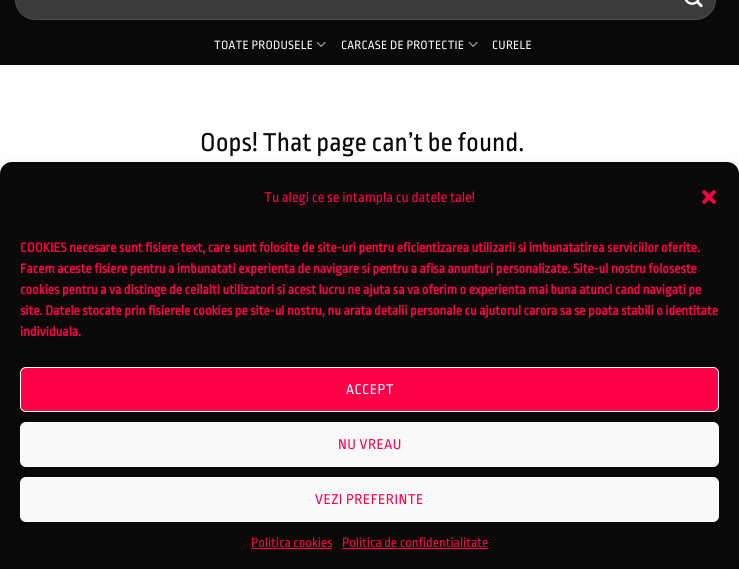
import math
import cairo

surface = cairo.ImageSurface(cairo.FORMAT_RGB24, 739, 569)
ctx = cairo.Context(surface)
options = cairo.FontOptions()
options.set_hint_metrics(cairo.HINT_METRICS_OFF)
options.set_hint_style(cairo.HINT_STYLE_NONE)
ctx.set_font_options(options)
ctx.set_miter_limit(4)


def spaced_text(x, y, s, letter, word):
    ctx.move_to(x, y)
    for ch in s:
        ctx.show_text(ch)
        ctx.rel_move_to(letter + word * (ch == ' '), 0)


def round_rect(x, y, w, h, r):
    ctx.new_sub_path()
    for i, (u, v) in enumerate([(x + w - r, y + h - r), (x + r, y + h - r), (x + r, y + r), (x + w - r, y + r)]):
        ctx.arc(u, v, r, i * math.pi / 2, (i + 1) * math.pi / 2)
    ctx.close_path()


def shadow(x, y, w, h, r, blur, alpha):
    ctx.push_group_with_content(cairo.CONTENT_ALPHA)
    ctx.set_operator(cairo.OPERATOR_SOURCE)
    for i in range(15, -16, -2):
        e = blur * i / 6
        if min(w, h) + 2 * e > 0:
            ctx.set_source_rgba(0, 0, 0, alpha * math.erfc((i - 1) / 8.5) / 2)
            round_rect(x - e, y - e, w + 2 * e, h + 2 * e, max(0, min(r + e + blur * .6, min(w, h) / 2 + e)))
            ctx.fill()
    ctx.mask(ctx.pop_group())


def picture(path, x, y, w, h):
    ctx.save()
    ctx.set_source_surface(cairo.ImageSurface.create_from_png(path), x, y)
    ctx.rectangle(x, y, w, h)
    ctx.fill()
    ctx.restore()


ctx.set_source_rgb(1, 1, 1)
ctx.paint()
ctx.set_source_rgb(0.039, 0.039, 0.039)
ctx.rectangle(0, 0, 739, 65)
ctx.fill()
ctx.set_source_rgb(0.231, 0.231, 0.231)
round_rect(15, -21, 701, 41, 20.5)
ctx.fill()
round_rect(15.5, -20.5, 700, 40, 20)
ctx.set_source_rgba(1, 1, 1, 0.09)
ctx.set_line_width(1)
ctx.stroke()
picture("img1.png", 684, 0, 19, 8)
ctx.select_font_face("Ropa Sans")
ctx.set_font_size(12.75)
ctx.set_source_rgb(1, 1, 1)
spaced_text(214, 49, "TOATE PRODUSELE", 0.25, 0)
picture("img2.png", 316, 41, 10, 6)
spaced_text(341, 49, "CARCASE DE PROTECTIE", 0.25, 0)
picture("img2.png", 468, 41, 10, 6)
spaced_text(492, 49, "CURELE", 0.25, 0)
ctx.set_font_size(27.25)
ctx.set_source_rgb(0.039, 0.039, 0.039)
ctx.move_to(200, 151)
ctx.show_text("Oops! That page can’t be found.")
ctx.rectangle(0, 557, 739, 12)
ctx.fill()
ctx.set_source_rgb(0, 0, 0)
shadow(0, 168, 739, 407, 12, 3, 0.23)
shadow(0, 172, 739, 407, 12, 10, 0.19)
ctx.set_source_rgb(0.039, 0.039, 0.039)
round_rect(0, 162, 739, 407, 12)
ctx.fill()
ctx.set_font_size(15)
ctx.set_source_rgb(0.996, 0, 0.278)
ctx.move_to(264, 202)
ctx.show_text("Tu alegi ce se intampla cu datele tale!")
picture("img3.png", 702, 190, 14, 14)
ctx.select_font_face("Ropa Sans", cairo.FONT_SLANT_NORMAL, cairo.FONT_WEIGHT_BOLD)
ctx.set_font_size(14)
ctx.move_to(20, 252)
ctx.show_text("COOKIES necesare sunt fisiere text, care sunt folosite de site-uri pentru eficientizarea utilizarii si imbunatatirea serviciilor oferite.")
ctx.move_to(20, 273)
ctx.show_text("Facem aceste fisiere pentru a imbunatati experienta de navigare si pentru a afisa anunturi personalizate. Site-ul nostru foloseste")
ctx.move_to(20, 294)
ctx.show_text("cookies pentru a va distinge de ceilalti utilizatori si acest lucru ne ajuta sa va oferim o experienta mai buna atunci cand navigati pe")
ctx.move_to(20, 315)
ctx.show_text("site. Datele stocate prin fisierele cookies pe site-ul nostru, nu arata detalii personale cu ajutorul carora sa se poata stabili o identitate")
ctx.move_to(20, 336)
ctx.show_text("individuala.")
round_rect(20.5, 367.5, 698, 44, 5.5)
ctx.fill_preserve()
ctx.set_source_rgb(1, 1, 1)
ctx.stroke()
ctx.select_font_face("Ropa Sans")
ctx.set_font_size(15)
spaced_text(346, 394, "ACCEPT", 0.5, 0)
ctx.set_source_rgb(0.976, 0.976, 0.976)
round_rect(20.5, 422.5, 698, 44, 5.5)
ctx.fill_preserve()
ctx.set_source_rgb(1, 1, 1)
ctx.stroke()
ctx.set_source_rgb(0.996, 0, 0.278)
spaced_text(338, 449, "NU VREAU", 0.5, 0)
ctx.set_source_rgb(0.976, 0.976, 0.976)
round_rect(20.5, 477.5, 698, 44, 5.5)
ctx.fill_preserve()
ctx.set_source_rgb(1, 1, 1)
ctx.stroke()
ctx.set_source_rgb(0.996, 0, 0.278)
spaced_text(315, 504, "VEZI PREFERINTE", 0.5, 0)
ctx.set_font_size(14)
ctx.move_to(251, 547)
ctx.show_text("Politica cookies")
ctx.rectangle(251, 548, 81, 1)
ctx.fill()
ctx.move_to(342, 547)
ctx.show_text("Politica de confidentialitate")
ctx.rectangle(342, 548, 146, 1)
ctx.fill()
surface.write_to_png("page.png")
